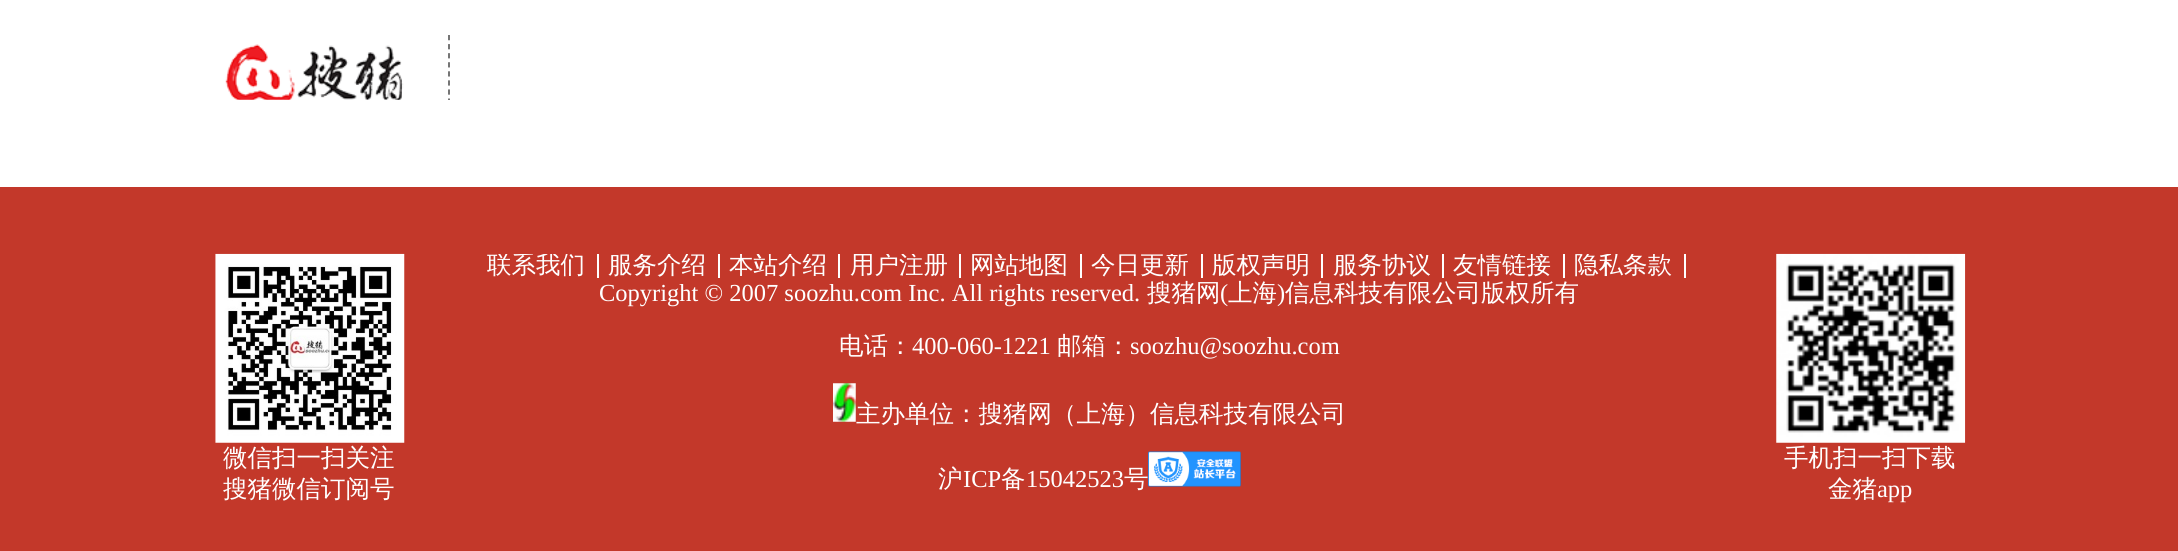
import math
import cairo

surface = cairo.ImageSurface(cairo.FORMAT_RGB24, 2178, 551)
ctx = cairo.Context(surface)
options = cairo.FontOptions()
options.set_hint_metrics(cairo.HINT_METRICS_OFF)
options.set_hint_style(cairo.HINT_STYLE_NONE)
ctx.set_font_options(options)
ctx.set_miter_limit(4)


def picture(path, x, y, w, h):
    ctx.save()
    ctx.set_source_surface(cairo.ImageSurface.create_from_png(path), x, y)
    ctx.rectangle(x, y, w, h)
    ctx.fill()
    ctx.restore()


ctx.set_source_rgb(1, 1, 1)
ctx.paint()
ctx.save()
ctx.rectangle(215, 0, 1750, 100)
ctx.clip()
ctx.new_path()
ctx.move_to(449, 35)
ctx.line_to(449, 140)
ctx.set_source_rgb(0.4, 0.4, 0.4)
ctx.set_line_width(1.8)
ctx.set_dash([5.25, 3.82])
ctx.stroke()
ctx.restore()
picture("img1.png", 225, 44, 179, 56)
ctx.set_source_rgb(0.765, 0.22, 0.165)
ctx.rectangle(0, 187, 2178, 364)
ctx.fill()
picture("img2.png", 215, 253, 190, 190)
ctx.select_font_face("WenQuanYi Zen Hei Medium")
ctx.set_font_size(24.5)
ctx.set_source_rgb(1, 1, 1)
ctx.move_to(223, 466)
ctx.show_text("微信扫一扫关注")
ctx.move_to(223, 497)
ctx.show_text("搜猪微信订阅号")
ctx.rectangle(597, 254, 2, 24)
ctx.fill()
ctx.save()
ctx.rectangle(478, 254, 1225, 262)
ctx.clip()
ctx.move_to(487, 273)
ctx.show_text("联系我们")
ctx.restore()
ctx.rectangle(718, 254, 2, 24)
ctx.fill()
ctx.save()
ctx.rectangle(478, 254, 1225, 262)
ctx.clip()
ctx.move_to(608, 273)
ctx.show_text("服务介绍")
ctx.restore()
ctx.rectangle(838, 254, 2, 24)
ctx.fill()
ctx.save()
ctx.rectangle(478, 254, 1225, 262)
ctx.clip()
ctx.move_to(729, 273)
ctx.show_text("本站介绍")
ctx.restore()
ctx.rectangle(959, 254, 2, 24)
ctx.fill()
ctx.save()
ctx.rectangle(478, 254, 1225, 262)
ctx.clip()
ctx.move_to(850, 273)
ctx.show_text("用户注册")
ctx.restore()
ctx.rectangle(1080, 254, 2, 24)
ctx.fill()
ctx.save()
ctx.rectangle(478, 254, 1225, 262)
ctx.clip()
ctx.move_to(970, 273)
ctx.show_text("网站地图")
ctx.restore()
ctx.rectangle(1201, 254, 2, 24)
ctx.fill()
ctx.save()
ctx.rectangle(478, 254, 1225, 262)
ctx.clip()
ctx.move_to(1091, 273)
ctx.show_text("今日更新")
ctx.restore()
ctx.rectangle(1321, 254, 2, 24)
ctx.fill()
ctx.save()
ctx.rectangle(478, 254, 1225, 262)
ctx.clip()
ctx.move_to(1212, 273)
ctx.show_text("版权声明")
ctx.restore()
ctx.rectangle(1442, 254, 2, 24)
ctx.fill()
ctx.save()
ctx.rectangle(478, 254, 1225, 262)
ctx.clip()
ctx.move_to(1333, 273)
ctx.show_text("服务协议")
ctx.restore()
ctx.rectangle(1563, 254, 2, 24)
ctx.fill()
ctx.save()
ctx.rectangle(478, 254, 1225, 262)
ctx.clip()
ctx.move_to(1453, 273)
ctx.show_text("友情链接")
ctx.restore()
ctx.rectangle(1684, 254, 2, 24)
ctx.fill()
ctx.save()
ctx.rectangle(478, 254, 1225, 262)
ctx.clip()
ctx.move_to(1574, 273)
ctx.show_text("隐私条款")
ctx.restore()
ctx.select_font_face("Liberation Serif")
ctx.move_to(599, 301)
ctx.show_text("Copyright © 2007 soozhu.com Inc. All rights reserved.")
ctx.select_font_face("WenQuanYi Zen Hei Medium")
ctx.move_to(1147, 301)
ctx.show_text("搜猪网")
ctx.select_font_face("Liberation Serif")
ctx.move_to(1220, 301)
ctx.show_text("(")
ctx.select_font_face("WenQuanYi Zen Hei Medium")
ctx.move_to(1228, 301)
ctx.show_text("上海")
ctx.select_font_face("Liberation Serif")
ctx.move_to(1277, 301)
ctx.show_text(")")
ctx.select_font_face("WenQuanYi Zen Hei Medium")
ctx.move_to(1285, 301)
ctx.show_text("信息科技有限公司版权所有")
ctx.move_to(839, 354)
ctx.show_text("电话：")
ctx.select_font_face("Liberation Serif")
ctx.move_to(912, 354)
ctx.show_text("400-060-1221")
ctx.select_font_face("WenQuanYi Zen Hei Medium")
ctx.move_to(1057, 354)
ctx.show_text("邮箱：")
ctx.select_font_face("Liberation Serif")
ctx.move_to(1130, 354)
ctx.show_text("soozhu@soozhu.com")
picture("img3.png", 833, 383, 23, 39)
ctx.select_font_face("WenQuanYi Zen Hei Medium")
ctx.move_to(856, 422)
ctx.show_text("主办单位：搜猪网（上海）信息科技有限公司")
ctx.move_to(938, 487)
ctx.show_text("沪")
ctx.select_font_face("Liberation Serif")
ctx.move_to(963, 487)
ctx.show_text("ICP")
ctx.select_font_face("WenQuanYi Zen Hei Medium")
ctx.move_to(1001, 487)
ctx.show_text("备")
ctx.select_font_face("Liberation Serif")
ctx.move_to(1026, 487)
ctx.show_text("15042523")
ctx.select_font_face("WenQuanYi Zen Hei Medium")
ctx.move_to(1124, 487)
ctx.show_text("号")
picture("img4.png", 1148, 451, 93, 36)
picture("img5.png", 1776, 253, 190, 190)
ctx.move_to(1784, 466)
ctx.show_text("手机扫一扫下载")
ctx.move_to(1828, 497)
ctx.show_text("金猪")
ctx.select_font_face("Liberation Serif")
ctx.move_to(1877, 497)
ctx.show_text("app")
surface.write_to_png("page.png")
